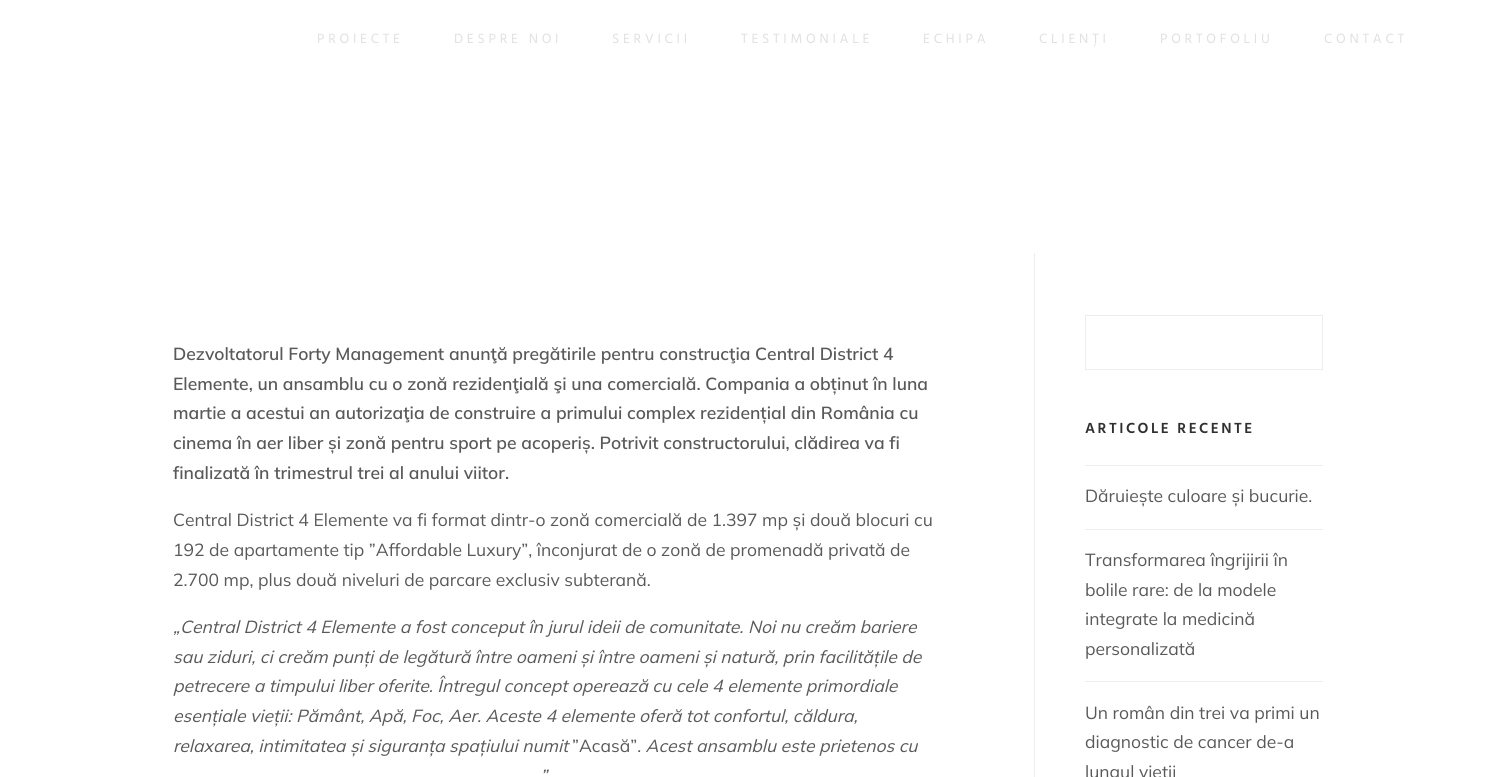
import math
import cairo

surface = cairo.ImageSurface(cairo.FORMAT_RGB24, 1495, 777)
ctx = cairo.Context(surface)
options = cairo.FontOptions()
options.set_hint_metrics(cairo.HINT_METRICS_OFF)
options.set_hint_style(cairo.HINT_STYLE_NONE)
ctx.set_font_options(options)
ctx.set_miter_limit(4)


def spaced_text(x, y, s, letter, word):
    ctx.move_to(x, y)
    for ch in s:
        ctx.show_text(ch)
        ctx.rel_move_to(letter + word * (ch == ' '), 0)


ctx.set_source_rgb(1, 1, 1)
ctx.paint()
ctx.select_font_face("Hind")
ctx.set_font_size(13.75)
ctx.set_source_rgb(0.878, 0.878, 0.878)
spaced_text(317, 43, "PROIECTE", 3.75, 0)
spaced_text(454, 43, "DESPRE NOI", 3.75, 0)
spaced_text(612, 43, "SERVICII", 3.75, 0)
spaced_text(741, 43, "TESTIMONIALE", 3.75, 0)
spaced_text(923, 43, "ECHIPA", 3.75, 0)
spaced_text(1039, 43, "CLIENȚI", 3.75, 0)
spaced_text(1160, 43, "PORTOFOLIU", 3.75, 0)
spaced_text(1324, 43, "CONTACT", 3.75, 0)
ctx.set_source_rgb(0.929, 0.929, 0.929)
ctx.rectangle(1034, 253, 1, 524)
ctx.fill()
ctx.select_font_face("Mulish SemiBold")
ctx.set_font_size(17.5)
ctx.set_source_rgb(0.349, 0.349, 0.349)
ctx.move_to(173, 360)
ctx.show_text("Dezvoltatorul Forty Management anunţă pregătirile pentru construcţia Central District 4")
ctx.move_to(173, 390)
ctx.show_text("Elemente, un ansamblu cu o zonă rezidenţială şi una comercială. Compania a obținut în luna")
ctx.move_to(173, 419)
ctx.show_text("martie a acestui an autorizaţia de construire a primului complex rezidențial din România cu")
ctx.move_to(173, 449)
ctx.show_text("cinema în aer liber și zonă pentru sport pe acoperiș. Potrivit constructorului, clădirea va fi")
ctx.move_to(173, 479)
ctx.show_text("finalizată în trimestrul trei al anului viitor.")
ctx.select_font_face("Mulish")
ctx.move_to(173, 526)
ctx.show_text("Central District 4 Elemente va fi format dintr-o zonă comercială de 1.397 mp și două blocuri cu")
ctx.move_to(173, 556)
ctx.show_text("192 de apartamente tip ”Affordable Luxury”, înconjurat de o zonă de promenadă privată de")
ctx.move_to(173, 586)
ctx.show_text("2.700 mp, plus două niveluri de parcare exclusiv subterană.")
ctx.select_font_face("Mulish", cairo.FONT_SLANT_ITALIC)
ctx.move_to(173, 633)
ctx.show_text("„Central District 4 Elemente a fost conceput în jurul ideii de comunitate. Noi nu creăm bariere")
ctx.move_to(173, 663)
ctx.show_text("sau ziduri, ci creăm punți de legătură între oameni și între oameni și natură, prin facilitățile de")
ctx.move_to(173, 692)
ctx.show_text("petrecere a timpului liber oferite. Întregul concept operează cu cele 4 elemente primordiale")
ctx.move_to(173, 722)
ctx.show_text("esențiale vieții: Pământ, Apă, Foc, Aer. Aceste 4 elemente oferă tot confortul, căldura,")
ctx.move_to(173, 752)
ctx.show_text("relaxarea, intimitatea și siguranța spațiului numit")
ctx.select_font_face("Mulish")
ctx.move_to(572, 752)
ctx.show_text("”Acasă”")
ctx.select_font_face("Mulish", cairo.FONT_SLANT_ITALIC)
ctx.move_to(637, 752)
ctx.show_text(". Acest ansamblu este prietenos cu")
ctx.move_to(540, 782)
ctx.show_text("”")
ctx.rectangle(1085.5, 315.5, 237, 54)
ctx.set_source_rgb(0.929, 0.929, 0.929)
ctx.set_line_width(1)
ctx.stroke()
ctx.select_font_face("Hind SemiBold")
ctx.set_font_size(15)
ctx.set_source_rgb(0.188, 0.188, 0.188)
spaced_text(1085, 433, "ARTICOLE RECENTE", 2.5, 0)
ctx.set_source_rgb(0.929, 0.929, 0.929)
ctx.rectangle(1085, 465, 238, 1)
ctx.fill()
ctx.select_font_face("Mulish")
ctx.set_font_size(17.5)
ctx.set_source_rgb(0.349, 0.349, 0.349)
ctx.move_to(1085, 502)
ctx.show_text("Dăruiește culoare și bucurie.")
ctx.set_source_rgb(0.929, 0.929, 0.929)
ctx.rectangle(1085, 529, 238, 1)
ctx.fill()
ctx.set_source_rgb(0.349, 0.349, 0.349)
ctx.move_to(1085, 566)
ctx.show_text("Transformarea îngrijirii în")
ctx.move_to(1085, 596)
ctx.show_text("bolile rare: de la modele")
ctx.move_to(1085, 625)
ctx.show_text("integrate la medicină")
ctx.move_to(1085, 655)
ctx.show_text("personalizată")
ctx.set_source_rgb(0.929, 0.929, 0.929)
ctx.rectangle(1085, 681, 238, 1)
ctx.fill()
ctx.set_source_rgb(0.349, 0.349, 0.349)
ctx.move_to(1085, 719)
ctx.show_text("Un român din trei va primi un")
ctx.move_to(1085, 748)
ctx.show_text("diagnostic de cancer de-a")
ctx.move_to(1085, 778)
ctx.show_text("lungul vieții")
surface.write_to_png("page.png")
